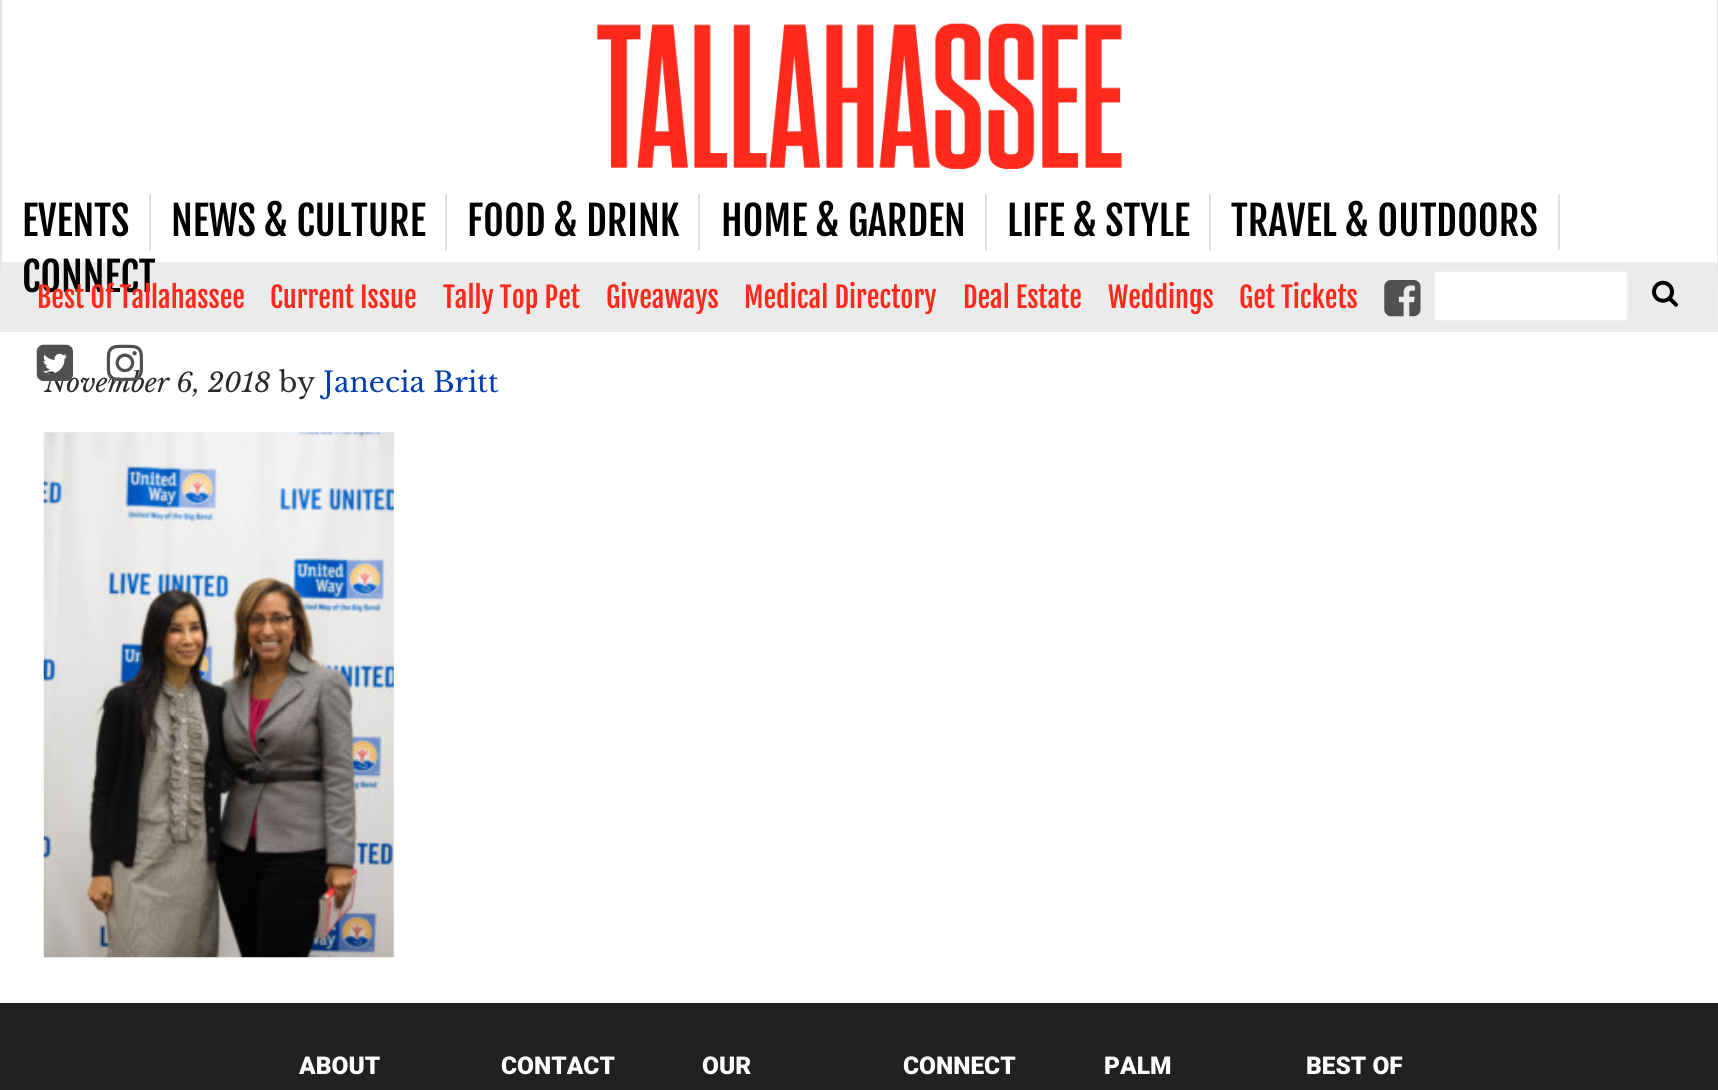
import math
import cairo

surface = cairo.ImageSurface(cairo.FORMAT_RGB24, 1718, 1090)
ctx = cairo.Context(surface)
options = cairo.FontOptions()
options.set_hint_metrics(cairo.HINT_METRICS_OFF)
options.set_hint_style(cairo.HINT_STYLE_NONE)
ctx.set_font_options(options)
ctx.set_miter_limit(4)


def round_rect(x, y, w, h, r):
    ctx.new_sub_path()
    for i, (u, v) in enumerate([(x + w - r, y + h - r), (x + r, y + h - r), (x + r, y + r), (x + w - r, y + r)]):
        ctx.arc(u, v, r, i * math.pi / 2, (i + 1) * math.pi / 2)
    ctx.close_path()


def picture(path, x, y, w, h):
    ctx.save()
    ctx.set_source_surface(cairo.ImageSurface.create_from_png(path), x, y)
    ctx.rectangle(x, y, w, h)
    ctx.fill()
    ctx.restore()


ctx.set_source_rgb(1, 1, 1)
ctx.paint()
ctx.set_source_rgb(0.902, 0.902, 0.902)
ctx.rectangle(0, 0, 1718, 2)
ctx.fill()
ctx.new_path()
ctx.move_to(1718, 0)
ctx.line_to(1718, 332)
ctx.line_to(1717, 262)
ctx.line_to(1717, 2)
ctx.close_path()
ctx.fill()
ctx.set_source_rgb(0.918, 0.918, 0.918)
ctx.new_path()
ctx.move_to(1718, 332)
ctx.line_to(0, 332)
ctx.line_to(2, 262)
ctx.line_to(1717, 262)
ctx.close_path()
ctx.fill()
ctx.set_source_rgb(0.902, 0.902, 0.902)
ctx.new_path()
ctx.move_to(0, 332)
ctx.line_to(0, 0)
ctx.line_to(2, 2)
ctx.line_to(2, 262)
ctx.close_path()
ctx.fill()
ctx.set_source_rgb(1, 1, 1)
ctx.rectangle(2, 0, 1715, 2)
ctx.fill()
picture("img1.png", 597, 23, 525, 146)
ctx.set_source_rgb(0.878, 0.878, 0.878)
ctx.rectangle(149, 194, 2, 56)
ctx.fill()
ctx.select_font_face("Fjalla One")
ctx.set_font_size(40)
ctx.set_source_rgb(0, 0, 0)
ctx.move_to(22, 236)
ctx.show_text("EVENTS")
ctx.set_source_rgb(0.878, 0.878, 0.878)
ctx.rectangle(445, 194, 2, 56)
ctx.fill()
ctx.set_source_rgb(0, 0, 0)
ctx.move_to(171, 236)
ctx.show_text("NEWS & CULTURE")
ctx.set_source_rgb(0.878, 0.878, 0.878)
ctx.rectangle(698, 194, 2, 56)
ctx.fill()
ctx.set_source_rgb(0, 0, 0)
ctx.move_to(467, 236)
ctx.show_text("FOOD & DRINK")
ctx.set_source_rgb(0.878, 0.878, 0.878)
ctx.rectangle(985, 194, 2, 56)
ctx.fill()
ctx.set_source_rgb(0, 0, 0)
ctx.move_to(721, 236)
ctx.show_text("HOME & GARDEN")
ctx.set_source_rgb(0.878, 0.878, 0.878)
ctx.rectangle(1209, 194, 2, 56)
ctx.fill()
ctx.set_source_rgb(0, 0, 0)
ctx.move_to(1007, 236)
ctx.show_text("LIFE & STYLE")
ctx.set_source_rgb(0.878, 0.878, 0.878)
ctx.rectangle(1558, 194, 2, 56)
ctx.fill()
ctx.set_source_rgb(0, 0, 0)
ctx.move_to(1231, 236)
ctx.show_text("TRAVEL & OUTDOORS")
ctx.move_to(22, 292)
ctx.show_text("CONNECT")
ctx.set_source_rgb(1, 1, 1)
round_rect(1434, 271, 194, 50, 4)
ctx.fill_preserve()
ctx.set_source_rgb(0.933, 0.933, 0.933)
ctx.stroke()
picture("img2.png", 1652, 280, 26, 27)
ctx.set_font_size(28.25)
ctx.set_source_rgb(1, 0.161, 0.11)
ctx.move_to(37, 308)
ctx.show_text("Best Of Tallahassee")
ctx.move_to(270, 308)
ctx.show_text("Current Issue")
ctx.move_to(443, 308)
ctx.show_text("Tally Top Pet")
ctx.move_to(606, 308)
ctx.show_text("Giveaways")
ctx.move_to(744, 308)
ctx.show_text("Medical Directory")
ctx.move_to(963, 308)
ctx.show_text("Deal Estate")
ctx.move_to(1108, 308)
ctx.show_text("Weddings")
ctx.move_to(1239, 308)
ctx.show_text("Get Tickets")
picture("img3.png", 1384, 280, 37, 37)
ctx.select_font_face("Libre Baskerville", cairo.FONT_SLANT_ITALIC)
ctx.set_font_size(26.5)
ctx.set_source_rgb(0.169, 0.169, 0.169)
ctx.move_to(44, 392)
ctx.show_text("November 6, 2018")
picture("img4.png", 36, 344, 38, 37)
picture("img5.png", 106, 344, 38, 37)
ctx.select_font_face("Libre Baskerville")
ctx.set_font_size(28)
ctx.move_to(279, 392)
ctx.show_text("by")
ctx.set_source_rgb(0.008, 0.235, 0.678)
ctx.move_to(323, 392)
ctx.show_text("Janecia Britt")
picture("img6.png", 43, 432, 351, 526)
ctx.set_source_rgb(0.129, 0.129, 0.129)
ctx.rectangle(0, 1003, 1718, 87)
ctx.fill()
ctx.select_font_face("Roboto Black")
ctx.set_font_size(24.5)
ctx.set_source_rgb(1, 1, 1)
ctx.move_to(299, 1074)
ctx.show_text("ABOUT")
ctx.move_to(501, 1074)
ctx.show_text("CONTACT")
ctx.move_to(702, 1074)
ctx.show_text("OUR")
ctx.move_to(903, 1074)
ctx.show_text("CONNECT")
ctx.move_to(1104, 1074)
ctx.show_text("PALM")
ctx.move_to(1306, 1074)
ctx.show_text("BEST OF")
surface.write_to_png("page.png")
